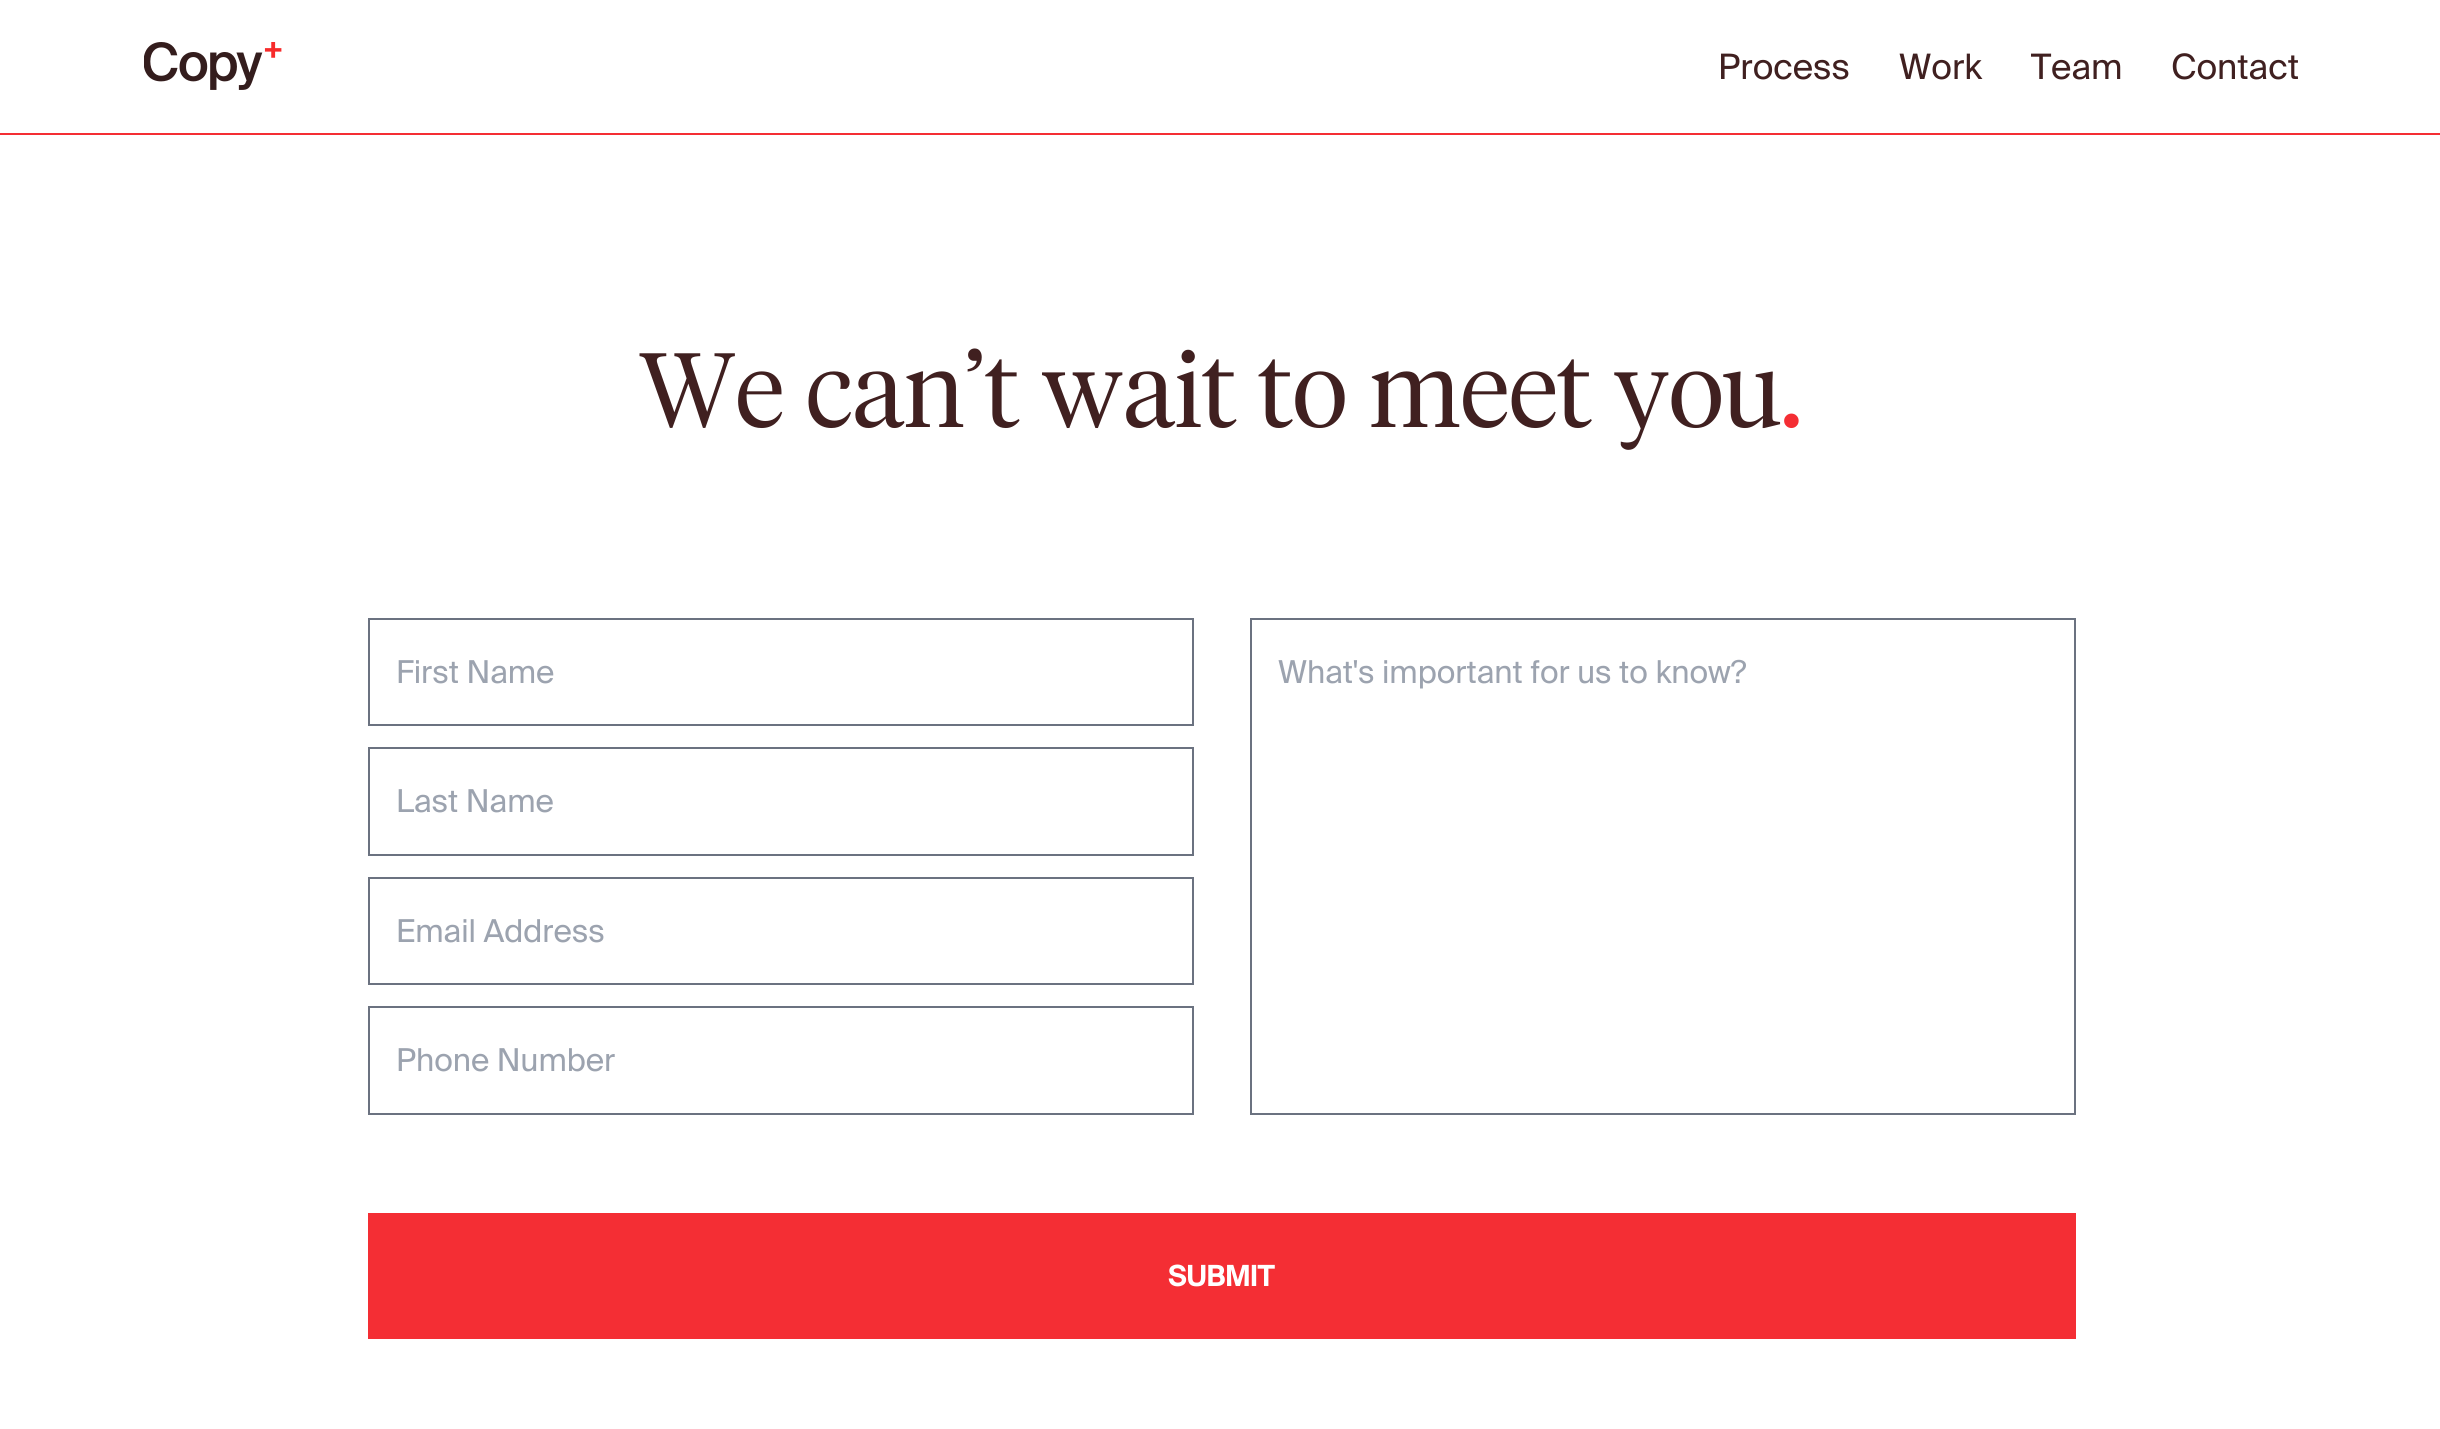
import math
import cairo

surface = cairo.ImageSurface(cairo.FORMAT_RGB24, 2440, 1429)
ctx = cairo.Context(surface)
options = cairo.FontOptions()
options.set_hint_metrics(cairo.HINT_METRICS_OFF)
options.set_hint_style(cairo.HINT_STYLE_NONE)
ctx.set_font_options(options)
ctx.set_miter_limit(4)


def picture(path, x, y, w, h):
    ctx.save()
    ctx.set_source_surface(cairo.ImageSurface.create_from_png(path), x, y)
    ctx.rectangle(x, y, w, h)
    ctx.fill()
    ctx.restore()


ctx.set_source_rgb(1, 1, 1)
ctx.paint()
ctx.set_source_rgb(0.957, 0.18, 0.204)
ctx.rectangle(0, 133, 2440, 2)
ctx.fill()
picture("img1.png", 144, 42, 138, 48)
ctx.select_font_face("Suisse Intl")
ctx.set_font_size(35)
ctx.set_source_rgb(0.251, 0.125, 0.125)
ctx.move_to(1718, 79)
ctx.show_text("Process")
ctx.move_to(1899, 79)
ctx.show_text("Work")
ctx.move_to(2031, 79)
ctx.show_text("Team")
ctx.move_to(2171, 79)
ctx.show_text("Contact")
ctx.select_font_face("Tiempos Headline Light")
ctx.set_font_size(105)
ctx.move_to(639, 427)
ctx.show_text("We can’t wait to meet you")
ctx.set_source_rgb(0.957, 0.18, 0.204)
ctx.move_to(1781, 427)
ctx.show_text(".")
ctx.rectangle(369, 619, 824, 106)
ctx.set_source_rgb(0.42, 0.447, 0.502)
ctx.stroke()
ctx.select_font_face("Suisse Intl")
ctx.set_font_size(31.5)
ctx.set_source_rgb(0.612, 0.639, 0.686)
ctx.move_to(396, 683)
ctx.show_text("First Name")
ctx.rectangle(369, 748, 824, 107)
ctx.set_source_rgb(0.42, 0.447, 0.502)
ctx.stroke()
ctx.set_source_rgb(0.612, 0.639, 0.686)
ctx.move_to(396, 812)
ctx.show_text("Last Name")
ctx.rectangle(369, 878, 824, 106)
ctx.set_source_rgb(0.42, 0.447, 0.502)
ctx.stroke()
ctx.set_source_rgb(0.612, 0.639, 0.686)
ctx.move_to(396, 942)
ctx.show_text("Email Address")
ctx.rectangle(369, 1007, 824, 107)
ctx.set_source_rgb(0.42, 0.447, 0.502)
ctx.stroke()
ctx.set_source_rgb(0.612, 0.639, 0.686)
ctx.move_to(396, 1071)
ctx.show_text("Phone Number")
ctx.rectangle(1251, 619, 824, 495)
ctx.set_source_rgb(0.42, 0.447, 0.502)
ctx.stroke()
ctx.set_source_rgb(0.612, 0.639, 0.686)
ctx.move_to(1278, 683)
ctx.show_text("What's important for us to know?")
ctx.set_source_rgb(0.957, 0.18, 0.204)
ctx.rectangle(368, 1213, 1708, 126)
ctx.fill()
ctx.select_font_face("Suisse Intl", cairo.FONT_SLANT_NORMAL, cairo.FONT_WEIGHT_BOLD)
ctx.set_font_size(28)
ctx.set_source_rgb(1, 1, 1)
ctx.move_to(1168, 1286)
ctx.show_text("SUBMIT")
surface.write_to_png("page.png")
